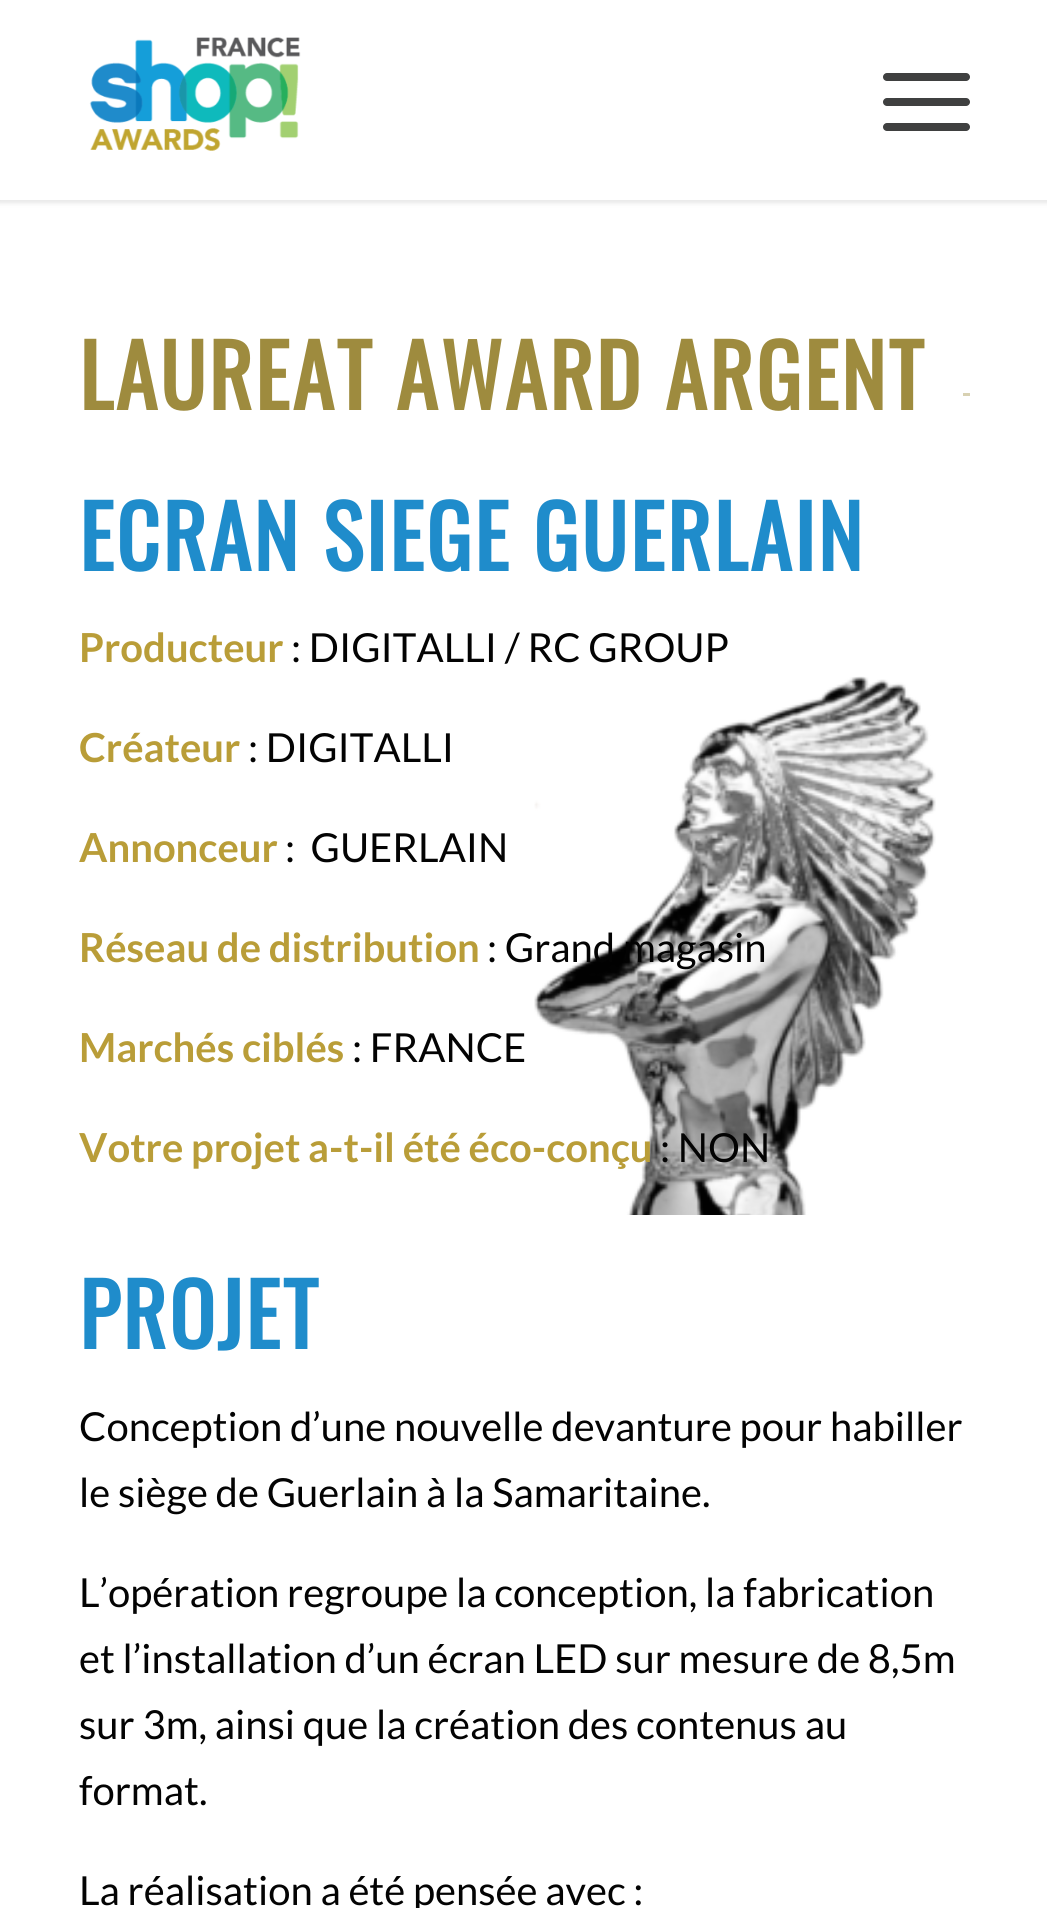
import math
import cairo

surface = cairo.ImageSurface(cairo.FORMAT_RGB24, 1047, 1908)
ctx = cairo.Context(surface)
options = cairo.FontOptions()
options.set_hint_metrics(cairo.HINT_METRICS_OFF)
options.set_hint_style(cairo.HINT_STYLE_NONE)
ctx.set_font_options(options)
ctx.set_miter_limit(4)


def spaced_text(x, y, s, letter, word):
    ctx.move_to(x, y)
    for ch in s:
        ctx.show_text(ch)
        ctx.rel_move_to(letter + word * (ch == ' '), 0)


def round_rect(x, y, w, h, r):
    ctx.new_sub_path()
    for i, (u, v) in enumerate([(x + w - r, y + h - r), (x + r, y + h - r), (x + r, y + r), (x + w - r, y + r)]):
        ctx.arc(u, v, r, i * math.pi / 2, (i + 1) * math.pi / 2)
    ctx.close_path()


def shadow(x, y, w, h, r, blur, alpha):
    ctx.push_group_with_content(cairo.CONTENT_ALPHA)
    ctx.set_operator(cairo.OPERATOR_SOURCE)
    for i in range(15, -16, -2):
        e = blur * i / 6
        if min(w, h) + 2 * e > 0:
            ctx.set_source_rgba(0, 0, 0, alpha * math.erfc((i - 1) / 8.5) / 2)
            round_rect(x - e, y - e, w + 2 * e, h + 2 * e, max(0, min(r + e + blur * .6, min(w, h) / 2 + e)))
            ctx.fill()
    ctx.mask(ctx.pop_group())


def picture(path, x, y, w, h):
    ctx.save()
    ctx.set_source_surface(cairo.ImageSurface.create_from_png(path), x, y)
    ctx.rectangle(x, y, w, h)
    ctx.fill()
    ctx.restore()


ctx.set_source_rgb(1, 1, 1)
ctx.paint()
ctx.set_source_rgb(0, 0, 0)
shadow(-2, -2, 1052, 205, 0, 2.5, 0.1)
ctx.set_source_rgb(1, 1, 1)
ctx.rectangle(0, 0, 1047, 200)
ctx.fill()
picture("img1.png", 89, 37, 212, 114)
ctx.set_source_rgb(0.247, 0.251, 0.251)
round_rect(883, 98, 87, 8, 4)
ctx.fill()
round_rect(883, 73, 87, 8, 4)
ctx.fill()
round_rect(883, 123, 87, 8, 4)
ctx.fill()
ctx.select_font_face("Oswald", cairo.FONT_SLANT_NORMAL, cairo.FONT_WEIGHT_BOLD)
ctx.set_font_size(85)
ctx.set_source_rgb(0.62, 0.545, 0.243)
spaced_text(79, 410, "LAUREAT AWARD ARGENT", 2.5, 0)
ctx.set_source_rgb(0.847, 0.82, 0.698)
ctx.rectangle(963, 393, 7, 3)
ctx.fill()
picture("img2.png", 534, 676, 402, 539)
ctx.set_source_rgb(0.122, 0.549, 0.796)
spaced_text(79, 571, "ECRAN SIEGE GUERLAIN", 2.5, 0)
ctx.select_font_face("Lato", cairo.FONT_SLANT_NORMAL, cairo.FONT_WEIGHT_BOLD)
ctx.set_font_size(40)
ctx.set_source_rgb(0.725, 0.616, 0.22)
ctx.move_to(79, 662)
ctx.show_text("Producteur")
ctx.select_font_face("Lato")
ctx.set_source_rgb(0.012, 0.012, 0.012)
ctx.move_to(291, 662)
ctx.show_text(": DIGITALLI / RC GROUP")
ctx.select_font_face("Lato", cairo.FONT_SLANT_NORMAL, cairo.FONT_WEIGHT_BOLD)
ctx.set_source_rgb(0.725, 0.616, 0.22)
ctx.move_to(79, 762)
ctx.show_text("Créateur")
ctx.select_font_face("Lato")
ctx.set_source_rgb(0.012, 0.012, 0.012)
ctx.move_to(248, 762)
ctx.show_text(": DIGITALLI")
ctx.select_font_face("Lato", cairo.FONT_SLANT_NORMAL, cairo.FONT_WEIGHT_BOLD)
ctx.set_source_rgb(0.725, 0.616, 0.22)
ctx.move_to(79, 862)
ctx.show_text("Annonceur")
ctx.select_font_face("Lato")
ctx.set_source_rgb(0.012, 0.012, 0.012)
ctx.move_to(285, 862)
ctx.show_text(":  GUERLAIN")
ctx.select_font_face("Lato", cairo.FONT_SLANT_NORMAL, cairo.FONT_WEIGHT_BOLD)
ctx.set_source_rgb(0.725, 0.616, 0.22)
ctx.move_to(79, 962)
ctx.show_text("Réseau de distribution")
ctx.select_font_face("Lato")
ctx.set_source_rgb(0.012, 0.012, 0.012)
ctx.move_to(487, 962)
ctx.show_text(": Grand magasin")
ctx.select_font_face("Lato", cairo.FONT_SLANT_NORMAL, cairo.FONT_WEIGHT_BOLD)
ctx.set_source_rgb(0.725, 0.616, 0.22)
ctx.move_to(79, 1062)
ctx.show_text("Marchés ciblés")
ctx.select_font_face("Lato")
ctx.set_source_rgb(0.012, 0.012, 0.012)
ctx.move_to(352, 1062)
ctx.show_text(": FRANCE")
ctx.select_font_face("Lato", cairo.FONT_SLANT_NORMAL, cairo.FONT_WEIGHT_BOLD)
ctx.set_source_rgb(0.725, 0.616, 0.22)
ctx.move_to(79, 1162)
ctx.show_text("Votre projet a-t-il été éco-conçu")
ctx.select_font_face("Lato")
ctx.set_source_rgb(0.012, 0.012, 0.012)
ctx.move_to(660, 1162)
ctx.show_text(": NON")
ctx.select_font_face("Oswald", cairo.FONT_SLANT_NORMAL, cairo.FONT_WEIGHT_BOLD)
ctx.set_font_size(85)
ctx.set_source_rgb(0.122, 0.549, 0.796)
spaced_text(79, 1349, "PROJET", 2.5, 0)
ctx.select_font_face("Lato")
ctx.set_font_size(40)
ctx.set_source_rgb(0.012, 0.012, 0.012)
ctx.move_to(79, 1441)
ctx.show_text("Conception d’une nouvelle devanture pour habiller")
ctx.move_to(79, 1507)
ctx.show_text("le siège de Guerlain à la Samaritaine.")
ctx.move_to(79, 1607)
ctx.show_text("L’opération regroupe la conception, la fabrication")
ctx.move_to(79, 1673)
ctx.show_text("et l’installation d’un écran LED sur mesure de 8,5m")
ctx.move_to(79, 1739)
ctx.show_text("sur 3m, ainsi que la création des contenus au")
ctx.move_to(79, 1805)
ctx.show_text("format.")
ctx.move_to(79, 1905)
ctx.show_text("La réalisation a été pensée avec :")
surface.write_to_png("page.png")
